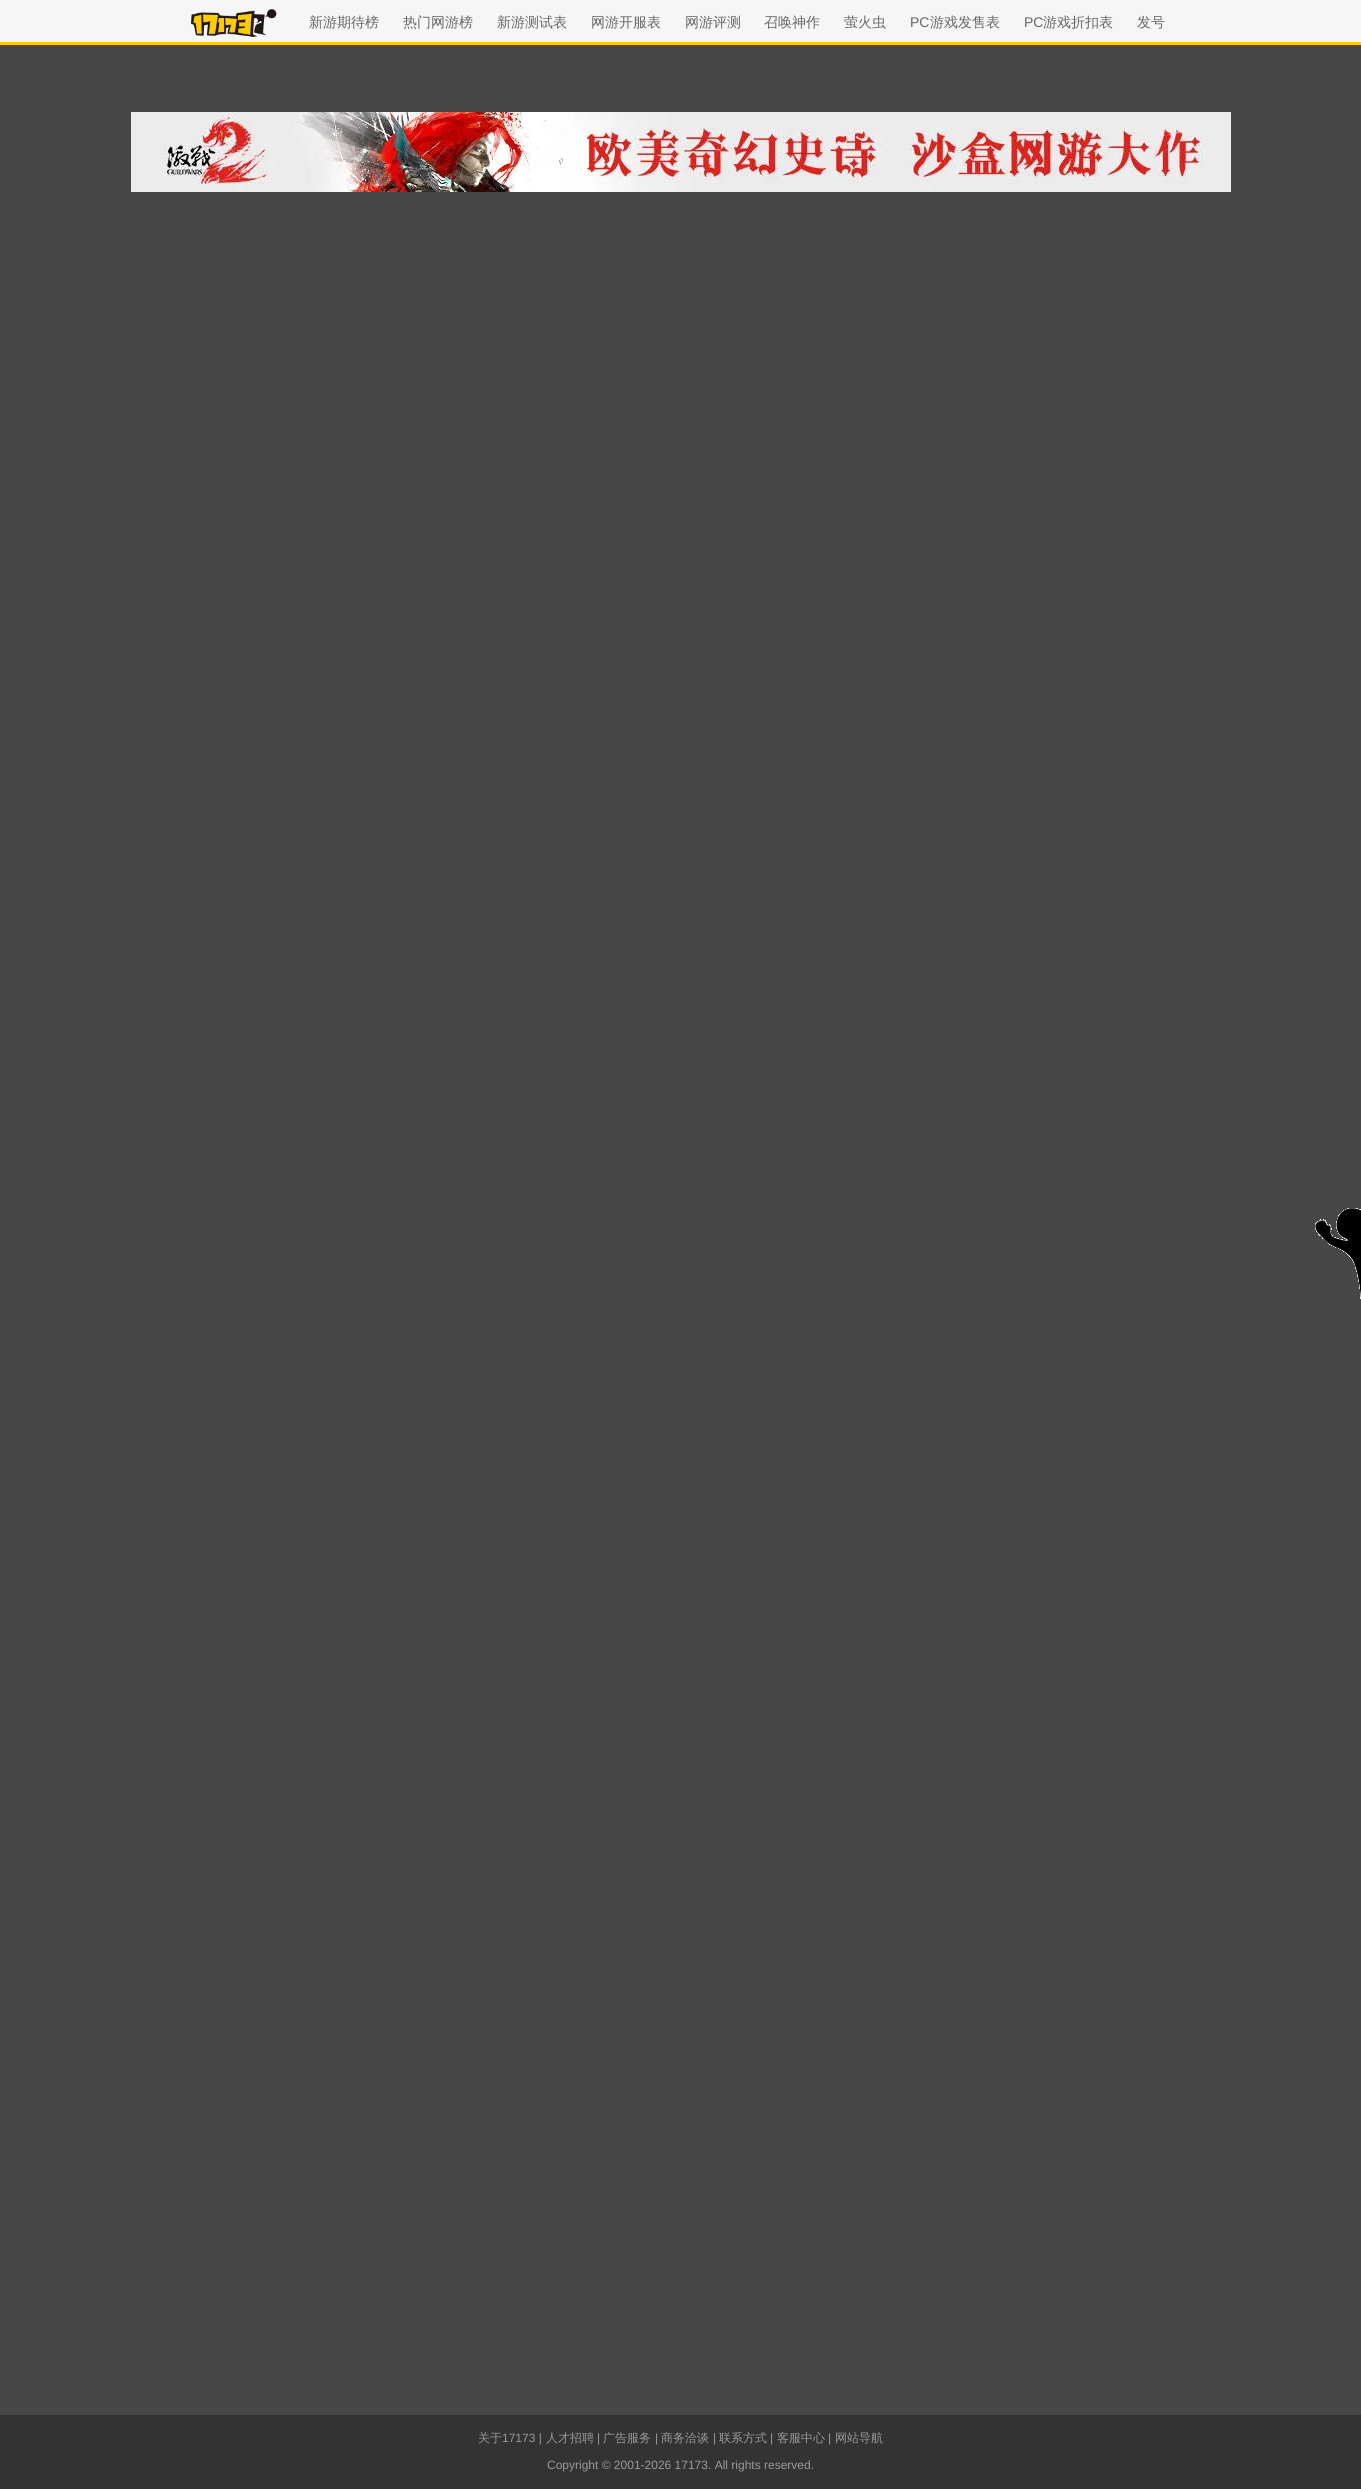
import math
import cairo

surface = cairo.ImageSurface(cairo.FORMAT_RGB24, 1361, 2489)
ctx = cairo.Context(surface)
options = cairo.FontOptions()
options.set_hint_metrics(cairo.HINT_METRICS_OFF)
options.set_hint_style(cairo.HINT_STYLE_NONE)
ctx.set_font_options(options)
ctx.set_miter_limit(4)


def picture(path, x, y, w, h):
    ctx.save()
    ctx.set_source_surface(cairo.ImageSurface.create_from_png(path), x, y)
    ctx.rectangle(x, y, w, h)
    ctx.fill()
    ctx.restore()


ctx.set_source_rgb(0.278, 0.278, 0.278)
ctx.paint()
ctx.set_source_rgb(0.961, 0.961, 0.961)
ctx.rectangle(0, 0, 1361, 42)
ctx.fill()
ctx.set_source_rgb(1, 0.804, 0)
ctx.rectangle(0, 42, 1361, 3)
ctx.fill()
picture("img1.png", 191, 9, 86, 28)
ctx.select_font_face("WenQuanYi Zen Hei Medium")
ctx.set_font_size(14)
ctx.set_source_rgb(0.4, 0.4, 0.4)
ctx.move_to(309, 27)
ctx.show_text("新游期待榜")
ctx.move_to(403, 27)
ctx.show_text("热门网游榜")
ctx.move_to(497, 27)
ctx.show_text("新游测试表")
ctx.move_to(591, 27)
ctx.show_text("网游开服表")
ctx.move_to(685, 27)
ctx.show_text("网游评测")
ctx.move_to(764, 27)
ctx.show_text("召唤神作")
ctx.move_to(844, 27)
ctx.show_text("萤火虫")
ctx.select_font_face("Liberation Sans")
ctx.move_to(910, 27)
ctx.show_text("PC")
ctx.select_font_face("WenQuanYi Zen Hei Medium")
ctx.move_to(930, 27)
ctx.show_text("游戏发售表")
ctx.select_font_face("Liberation Sans")
ctx.move_to(1024, 27)
ctx.show_text("PC")
ctx.select_font_face("WenQuanYi Zen Hei Medium")
ctx.move_to(1043, 27)
ctx.show_text("游戏折扣表")
ctx.move_to(1137, 27)
ctx.show_text("发号")
picture("img2.png", 131, 112, 1100, 80)
picture("img3.png", 1315, 1208, 46, 91)
ctx.set_source_rgb(0.2, 0.2, 0.2)
ctx.rectangle(0, 2415, 1361, 74)
ctx.fill()
ctx.set_font_size(12)
ctx.set_source_rgb(0.6, 0.6, 0.6)
ctx.move_to(478, 2442)
ctx.show_text("关于")
ctx.select_font_face("Liberation Sans")
ctx.move_to(502, 2442)
ctx.show_text("17173 |")
ctx.select_font_face("WenQuanYi Zen Hei Medium")
ctx.move_to(546, 2442)
ctx.show_text("人才招聘")
ctx.select_font_face("Liberation Sans")
ctx.move_to(597, 2442)
ctx.show_text("|")
ctx.select_font_face("WenQuanYi Zen Hei Medium")
ctx.move_to(603, 2442)
ctx.show_text("广告服务")
ctx.select_font_face("Liberation Sans")
ctx.move_to(655, 2442)
ctx.show_text("|")
ctx.select_font_face("WenQuanYi Zen Hei Medium")
ctx.move_to(661, 2442)
ctx.show_text("商务洽谈")
ctx.select_font_face("Liberation Sans")
ctx.move_to(713, 2442)
ctx.show_text("|")
ctx.select_font_face("WenQuanYi Zen Hei Medium")
ctx.move_to(719, 2442)
ctx.show_text("联系方式")
ctx.select_font_face("Liberation Sans")
ctx.move_to(770, 2442)
ctx.show_text("|")
ctx.select_font_face("WenQuanYi Zen Hei Medium")
ctx.move_to(777, 2442)
ctx.show_text("客服中心")
ctx.select_font_face("Liberation Sans")
ctx.move_to(828, 2442)
ctx.show_text("|")
ctx.select_font_face("WenQuanYi Zen Hei Medium")
ctx.move_to(835, 2442)
ctx.show_text("网站导航")
ctx.select_font_face("Liberation Sans")
ctx.move_to(547, 2469)
ctx.show_text("Copyright © 2001-2026 17173. All rights reserved.")
surface.write_to_png("page.png")
